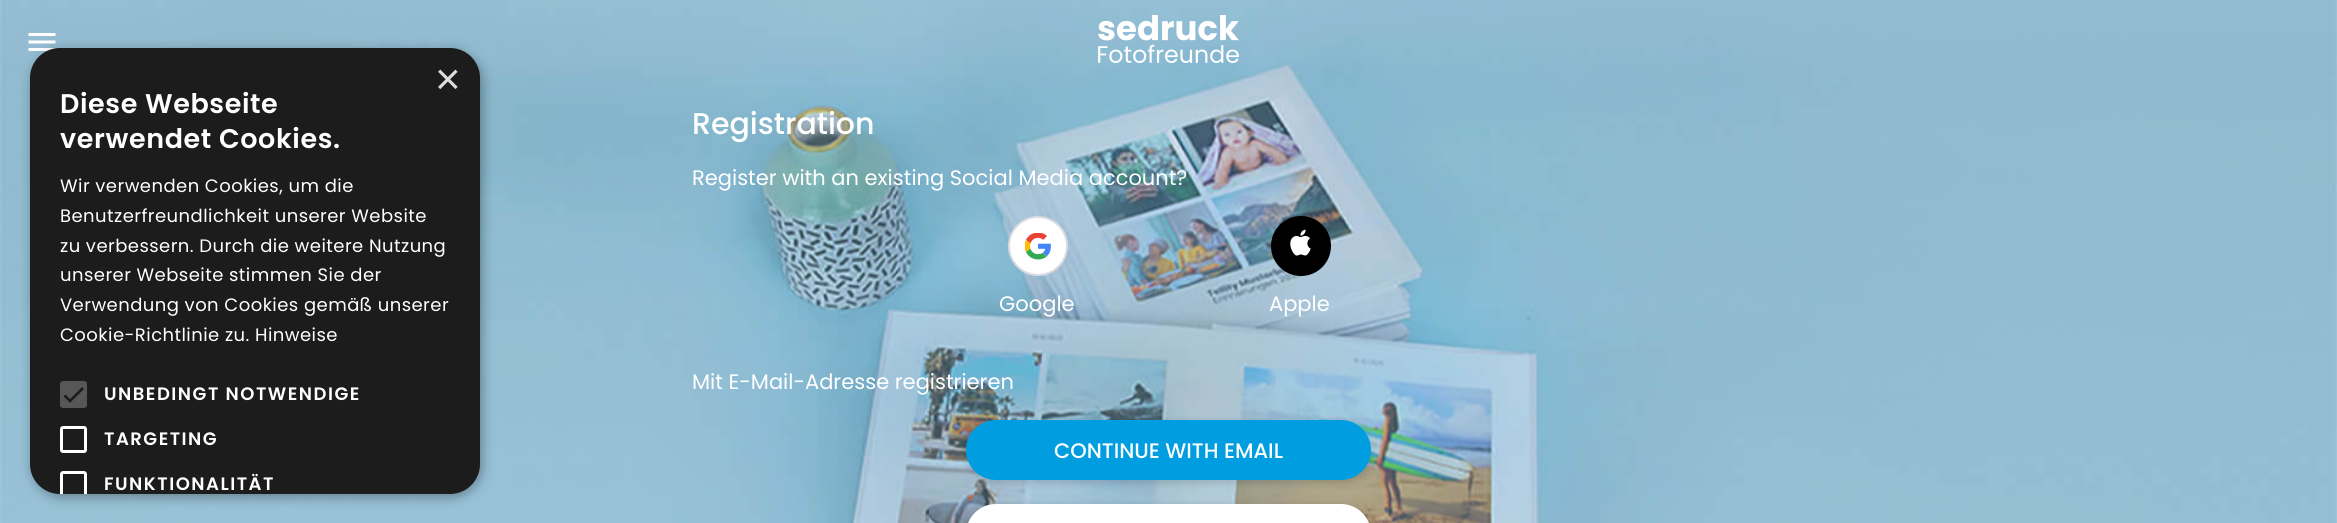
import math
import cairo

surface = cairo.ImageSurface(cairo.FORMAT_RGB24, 2337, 523)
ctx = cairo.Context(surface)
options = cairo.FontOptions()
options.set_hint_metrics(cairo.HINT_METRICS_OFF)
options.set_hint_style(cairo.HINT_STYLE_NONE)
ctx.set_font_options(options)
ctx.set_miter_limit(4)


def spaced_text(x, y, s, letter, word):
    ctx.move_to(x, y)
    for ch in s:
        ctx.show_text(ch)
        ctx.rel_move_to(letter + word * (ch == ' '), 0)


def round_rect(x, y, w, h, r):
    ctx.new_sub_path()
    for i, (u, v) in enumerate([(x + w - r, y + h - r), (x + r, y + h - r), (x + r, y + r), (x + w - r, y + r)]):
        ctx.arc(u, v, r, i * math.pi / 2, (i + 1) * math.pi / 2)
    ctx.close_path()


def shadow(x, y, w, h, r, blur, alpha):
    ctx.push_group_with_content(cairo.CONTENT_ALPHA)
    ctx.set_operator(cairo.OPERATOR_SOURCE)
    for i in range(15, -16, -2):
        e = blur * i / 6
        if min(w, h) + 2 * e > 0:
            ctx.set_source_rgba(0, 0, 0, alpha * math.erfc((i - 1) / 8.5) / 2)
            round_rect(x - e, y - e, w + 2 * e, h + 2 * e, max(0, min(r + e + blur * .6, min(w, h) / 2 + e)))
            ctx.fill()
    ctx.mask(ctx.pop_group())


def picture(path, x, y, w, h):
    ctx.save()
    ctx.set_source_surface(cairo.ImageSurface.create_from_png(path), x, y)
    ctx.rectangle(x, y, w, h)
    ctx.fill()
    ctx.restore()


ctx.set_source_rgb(1, 1, 1)
ctx.paint()
picture("img3.png", 0, 0, 2337, 523)
picture("img1.png", 28, 33, 28, 18)
picture("img2.png", 1098, 15, 141, 48)
ctx.set_source_rgb(0, 0, 0)
shadow(32, 51, 450, 446, 30, 6, 0.35)
ctx.set_source_rgb(0.11, 0.11, 0.11)
round_rect(30, 48, 450, 446, 30)
ctx.fill()
ctx.select_font_face("Liberation Sans")
ctx.set_font_size(44)
ctx.set_source_rgb(0.867, 0.867, 0.867)
ctx.move_to(435, 94)
ctx.show_text("×")
ctx.select_font_face("Poppins SemiBold")
ctx.set_font_size(27)
ctx.set_source_rgb(1, 1, 1)
spaced_text(60, 113, "Diese Webseite", 0.6, 0)
spaced_text(60, 148, "verwendet Cookies.", 0.6, 0)
ctx.select_font_face("Poppins")
ctx.set_font_size(18)
spaced_text(60, 192, "Wir verwenden Cookies, um die", 0.45, 0)
spaced_text(60, 222, "Benutzerfreundlichkeit unserer Website", 0.45, 0)
spaced_text(60, 252, "zu verbessern. Durch die weitere Nutzung", 0.45, 0)
spaced_text(60, 281, "unserer Webseite stimmen Sie der", 0.45, 0)
spaced_text(60, 311, "Verwendung von Cookies gemäß unserer", 0.45, 0)
spaced_text(60, 341, "Cookie-Richtlinie zu. Hinweise", 0.45, 0)
ctx.set_source_rgb(0.341, 0.341, 0.341)
round_rect(60, 381, 27, 27, 3)
ctx.fill()
ctx.new_path()
ctx.move_to(64.5, 395.5)
ctx.line_to(70, 401)
ctx.line_to(83, 388)
ctx.set_source_rgb(0.11, 0.11, 0.11)
ctx.set_line_width(2.7)
ctx.stroke()
ctx.select_font_face("Poppins SemiBold")
ctx.set_source_rgb(1, 1, 1)
spaced_text(104, 400, "UNBEDINGT NOTWENDIGE", 1.5, 0)
round_rect(61.5, 427.5, 24, 24, 1.5)
ctx.set_line_width(3)
ctx.stroke()
spaced_text(104, 445, "TARGETING", 1.5, 0)
ctx.new_path()
ctx.move_to(63, 471)
ctx.curve_to(61.5, 471, 60, 472.5, 60, 474)
ctx.line_to(60, 494)
ctx.line_to(63, 494)
ctx.line_to(63, 474)
ctx.line_to(84, 474)
ctx.line_to(84, 494)
ctx.line_to(87, 494)
ctx.line_to(87, 474)
ctx.curve_to(87, 472.5, 85.5, 471, 84, 471)
ctx.close_path()
ctx.fill()
spaced_text(104, 490, "FUNKTIONALITÄT", 1.5, 0)
ctx.select_font_face("Poppins Medium")
ctx.set_font_size(30)
ctx.move_to(692, 134)
ctx.show_text("Registration")
ctx.select_font_face("Poppins")
ctx.set_font_size(21)
ctx.move_to(692, 185)
ctx.show_text("Register with an existing Social Media account?")
ctx.new_path()
ctx.arc(1038, 246, 29, 0, 2 * math.pi)
ctx.fill_preserve()
ctx.set_source_rgb(0.855, 0.863, 0.878)
ctx.set_line_width(2)
ctx.stroke()
picture("img4.png", 1025, 233, 26, 27)
ctx.set_source_rgb(1, 1, 1)
ctx.move_to(999, 311)
ctx.show_text("Google")
ctx.set_source_rgb(0, 0, 0)
ctx.new_path()
ctx.arc(1301, 246, 30, 0, 2 * math.pi)
ctx.fill()
picture("img5.png", 1290, 229, 21, 27)
ctx.set_source_rgb(1, 1, 1)
ctx.move_to(1269, 311)
ctx.show_text("Apple")
ctx.move_to(692, 389)
ctx.show_text("Mit E-Mail-Adresse registrieren")
ctx.set_source_rgb(0, 0, 0)
shadow(966, 422, 405, 60, 30, 4.5, 0.16)
ctx.set_source_rgb(0, 0.62, 0.878)
round_rect(966, 420, 405, 60, 30)
ctx.fill()
ctx.select_font_face("Poppins Medium")
ctx.set_source_rgb(1, 1, 1)
ctx.move_to(1054, 458)
ctx.show_text("CONTINUE WITH EMAIL")
ctx.set_source_rgb(0, 0, 0)
shadow(966, 506, 405, 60, 30, 4.5, 0.16)
ctx.set_source_rgb(1, 1, 1)
round_rect(966, 504, 405, 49, 30)
ctx.fill()
surface.write_to_png("page.png")
